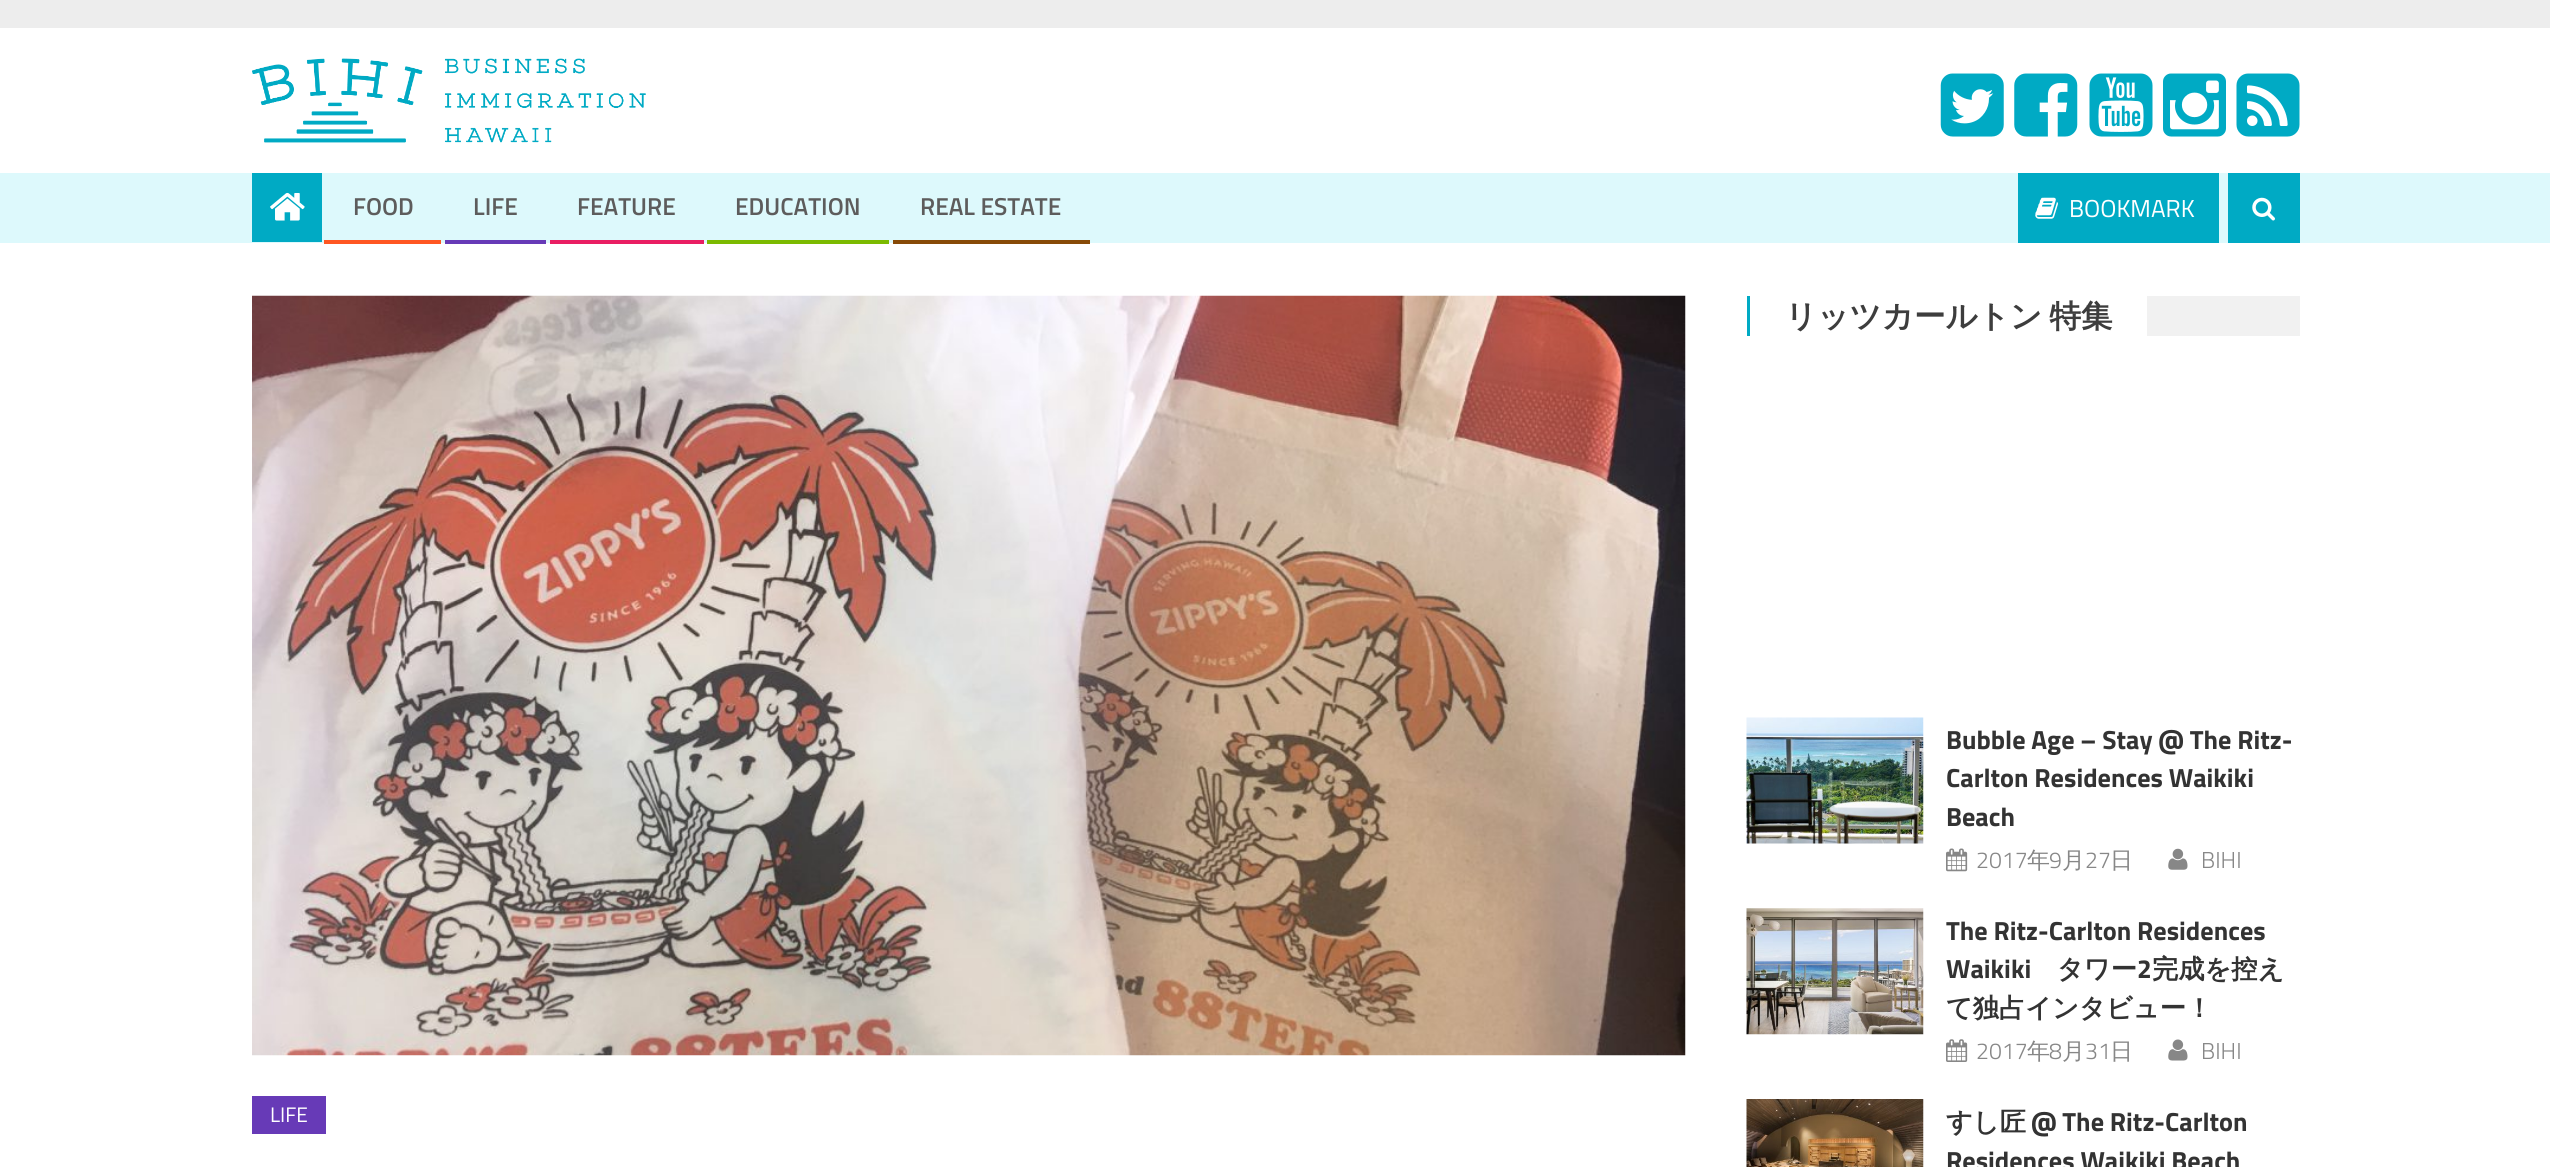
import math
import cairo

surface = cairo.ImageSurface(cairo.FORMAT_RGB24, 2550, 1167)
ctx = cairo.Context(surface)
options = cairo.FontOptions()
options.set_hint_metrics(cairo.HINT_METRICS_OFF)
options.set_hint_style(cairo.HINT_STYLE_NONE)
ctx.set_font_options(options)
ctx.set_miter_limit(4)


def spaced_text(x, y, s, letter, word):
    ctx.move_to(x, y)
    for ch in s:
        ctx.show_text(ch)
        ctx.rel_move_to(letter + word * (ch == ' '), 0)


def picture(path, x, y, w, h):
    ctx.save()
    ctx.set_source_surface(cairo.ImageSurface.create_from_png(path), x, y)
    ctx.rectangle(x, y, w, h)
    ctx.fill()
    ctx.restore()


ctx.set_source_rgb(1, 1, 1)
ctx.paint()
ctx.set_source_rgb(0.929, 0.929, 0.929)
ctx.rectangle(0, 0, 2550, 28)
ctx.fill()
picture("img1.png", 252, 58, 394, 85)
picture("img2.png", 1940, 73, 64, 64)
picture("img3.png", 2014, 73, 64, 64)
picture("img4.png", 2089, 73, 64, 64)
picture("img5.png", 2163, 73, 63, 64)
picture("img6.png", 2236, 73, 64, 64)
ctx.set_source_rgb(0.867, 0.973, 0.988)
ctx.rectangle(0, 173, 2550, 70)
ctx.fill()
ctx.set_source_rgb(0, 0.667, 0.769)
ctx.rectangle(252, 173, 70, 69)
ctx.fill()
picture("img7.png", 270, 192, 35, 29)
ctx.set_source_rgb(1, 0.341, 0.133)
ctx.rectangle(324, 240, 117, 4)
ctx.fill()
ctx.select_font_face("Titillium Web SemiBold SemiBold")
ctx.set_font_size(24.5)
ctx.set_source_rgb(0.365, 0.361, 0.361)
ctx.move_to(353, 215)
ctx.show_text("FOOD")
ctx.set_source_rgb(0.404, 0.227, 0.718)
ctx.rectangle(445, 240, 101, 4)
ctx.fill()
ctx.set_source_rgb(0.365, 0.361, 0.361)
ctx.move_to(473, 215)
ctx.show_text("LIFE")
ctx.set_source_rgb(0.914, 0.118, 0.388)
ctx.rectangle(550, 240, 154, 4)
ctx.fill()
ctx.set_source_rgb(0.365, 0.361, 0.361)
ctx.move_to(577, 215)
ctx.show_text("FEATURE")
ctx.set_source_rgb(0.482, 0.729, 0)
ctx.rectangle(707, 240, 182, 4)
ctx.fill()
ctx.set_source_rgb(0.365, 0.361, 0.361)
ctx.move_to(735, 215)
ctx.show_text("EDUCATION")
ctx.set_source_rgb(0.529, 0.29, 0.031)
ctx.rectangle(893, 240, 197, 4)
ctx.fill()
ctx.set_source_rgb(0.365, 0.361, 0.361)
ctx.move_to(920, 215)
ctx.show_text("REAL ESTATE")
ctx.set_source_rgb(0, 0.667, 0.769)
ctx.rectangle(2018, 173, 201, 70)
ctx.fill()
picture("img8.png", 2035, 197, 23, 22)
ctx.select_font_face("Titillium Web")
ctx.set_source_rgb(1, 1, 1)
ctx.move_to(2069, 217)
ctx.show_text("BOOKMARK")
ctx.set_source_rgb(0, 0.667, 0.769)
ctx.rectangle(2228, 173, 72, 70)
ctx.fill()
picture("img9.png", 2252, 197, 23, 24)
picture("img10.png", 252, 295, 1434, 761)
ctx.set_source_rgb(0.404, 0.227, 0.718)
ctx.rectangle(252, 1096, 74, 38)
ctx.fill()
ctx.set_font_size(21)
ctx.set_source_rgb(1, 1, 1)
ctx.move_to(270, 1122)
ctx.show_text("LIFE")
ctx.set_source_rgb(0.945, 0.945, 0.945)
ctx.rectangle(2147, 296, 153, 40)
ctx.fill()
ctx.set_source_rgb(0, 0.667, 0.769)
ctx.rectangle(1747, 296, 3, 40)
ctx.fill()
ctx.select_font_face("WenQuanYi Zen Hei", cairo.FONT_SLANT_NORMAL, cairo.FONT_WEIGHT_BOLD)
ctx.set_font_size(31.5)
ctx.set_source_rgb(0.239, 0.239, 0.239)
spaced_text(1785, 327, "リッツカールトン 特集", 0, -2)
picture("img11.png", 1746, 717, 178, 127)
ctx.select_font_face("Titillium Web", cairo.FONT_SLANT_NORMAL, cairo.FONT_WEIGHT_BOLD)
ctx.set_font_size(26.25)
ctx.set_source_rgb(0.2, 0.2, 0.2)
ctx.move_to(1946, 749)
ctx.show_text("Bubble Age – Stay @ The Ritz-")
ctx.move_to(1946, 787)
ctx.show_text("Carlton Residences Waikiki")
ctx.move_to(1946, 826)
ctx.show_text("Beach")
picture("img12.png", 1946, 848, 22, 24)
ctx.select_font_face("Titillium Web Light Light")
ctx.set_font_size(23)
ctx.set_source_rgb(0.529, 0.529, 0.529)
ctx.move_to(1976, 868)
ctx.show_text("2017")
ctx.select_font_face("WenQuanYi Zen Hei Medium")
ctx.move_to(2027, 868)
ctx.show_text("年")
ctx.select_font_face("Titillium Web Light Light")
ctx.move_to(2049, 868)
ctx.show_text("9")
ctx.select_font_face("WenQuanYi Zen Hei Medium")
ctx.move_to(2062, 868)
ctx.show_text("月")
ctx.select_font_face("Titillium Web Light Light")
ctx.move_to(2085, 868)
ctx.show_text("27")
ctx.select_font_face("WenQuanYi Zen Hei Medium")
ctx.move_to(2110, 868)
ctx.show_text("日")
picture("img13.png", 2168, 848, 20, 22)
ctx.select_font_face("Titillium Web Light Light")
ctx.move_to(2201, 868)
ctx.show_text("BIHI")
picture("img14.png", 1746, 908, 178, 127)
ctx.select_font_face("Titillium Web", cairo.FONT_SLANT_NORMAL, cairo.FONT_WEIGHT_BOLD)
ctx.set_font_size(26.25)
ctx.set_source_rgb(0.2, 0.2, 0.2)
ctx.move_to(1946, 940)
ctx.show_text("The Ritz-Carlton Residences")
ctx.move_to(1946, 978)
ctx.show_text("Waikiki")
ctx.select_font_face("WenQuanYi Zen Hei", cairo.FONT_SLANT_NORMAL, cairo.FONT_WEIGHT_BOLD)
ctx.move_to(2057, 978)
ctx.show_text("タワー")
ctx.select_font_face("Titillium Web", cairo.FONT_SLANT_NORMAL, cairo.FONT_WEIGHT_BOLD)
ctx.move_to(2137, 978)
ctx.show_text("2")
ctx.select_font_face("WenQuanYi Zen Hei", cairo.FONT_SLANT_NORMAL, cairo.FONT_WEIGHT_BOLD)
ctx.move_to(2152, 978)
ctx.show_text("完成を控え")
ctx.move_to(1946, 1017)
ctx.show_text("て独占インタビュー！")
picture("img15.png", 1946, 1039, 22, 23)
ctx.select_font_face("Titillium Web Light Light")
ctx.set_font_size(23)
ctx.set_source_rgb(0.529, 0.529, 0.529)
ctx.move_to(1976, 1059)
ctx.show_text("2017")
ctx.select_font_face("WenQuanYi Zen Hei Medium")
ctx.move_to(2027, 1059)
ctx.show_text("年")
ctx.select_font_face("Titillium Web Light Light")
ctx.move_to(2049, 1059)
ctx.show_text("8")
ctx.select_font_face("WenQuanYi Zen Hei Medium")
ctx.move_to(2062, 1059)
ctx.show_text("月")
ctx.select_font_face("Titillium Web Light Light")
ctx.move_to(2085, 1059)
ctx.show_text("31")
ctx.select_font_face("WenQuanYi Zen Hei Medium")
ctx.move_to(2110, 1059)
ctx.show_text("日")
picture("img16.png", 2168, 1039, 20, 22)
ctx.select_font_face("Titillium Web Light Light")
ctx.move_to(2201, 1059)
ctx.show_text("BIHI")
picture("img17.png", 1746, 1099, 178, 68)
ctx.select_font_face("WenQuanYi Zen Hei", cairo.FONT_SLANT_NORMAL, cairo.FONT_WEIGHT_BOLD)
ctx.set_font_size(26.25)
ctx.set_source_rgb(0.2, 0.2, 0.2)
ctx.move_to(1946, 1131)
ctx.show_text("すし匠")
ctx.select_font_face("Titillium Web", cairo.FONT_SLANT_NORMAL, cairo.FONT_WEIGHT_BOLD)
ctx.move_to(2031, 1131)
ctx.show_text("@ The Ritz-Carlton")
ctx.move_to(1946, 1170)
ctx.show_text("Residences Waikiki Beach")
surface.write_to_png("page.png")
